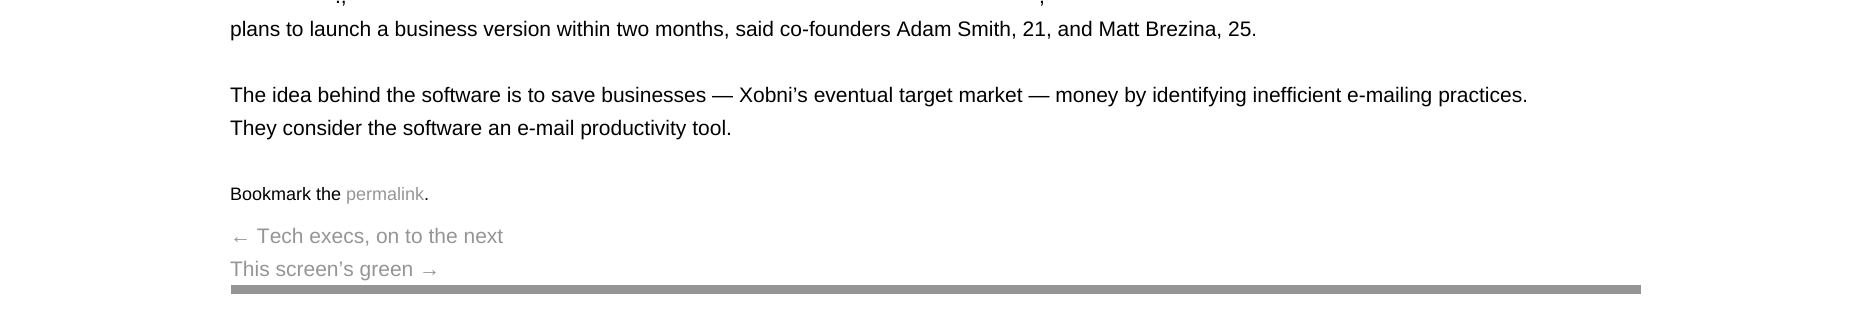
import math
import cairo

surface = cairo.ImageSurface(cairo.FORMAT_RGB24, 1870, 316)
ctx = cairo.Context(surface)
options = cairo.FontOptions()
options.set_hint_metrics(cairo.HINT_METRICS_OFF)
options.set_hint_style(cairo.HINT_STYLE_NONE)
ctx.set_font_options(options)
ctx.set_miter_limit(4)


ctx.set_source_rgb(1, 1, 1)
ctx.paint()
ctx.select_font_face("Liberation Sans")
ctx.set_font_size(21)
ctx.set_source_rgb(0, 0, 0)
ctx.move_to(335, 3)
ctx.show_text(".,")
ctx.move_to(1039, 3)
ctx.show_text(",")
ctx.move_to(230, 36)
ctx.show_text("plans to launch a business version within two months, said co-founders Adam Smith, 21, and Matt Brezina, 25.")
ctx.move_to(230, 102)
ctx.show_text("The idea behind the software is to save businesses — Xobni’s eventual target market — money by identifying inefficient e-mailing practices.")
ctx.move_to(230, 135)
ctx.show_text("They consider the software an e-mail productivity tool.")
ctx.set_font_size(18)
ctx.move_to(230, 200)
ctx.show_text("Bookmark the")
ctx.set_source_rgb(0.584, 0.584, 0.584)
ctx.move_to(346, 200)
ctx.show_text("permalink")
ctx.set_source_rgb(0, 0, 0)
ctx.move_to(424, 200)
ctx.show_text(".")
ctx.set_font_size(21)
ctx.set_source_rgb(0.584, 0.584, 0.584)
ctx.move_to(230, 243)
ctx.show_text("← Tech execs, on to the next")
ctx.move_to(230, 276)
ctx.show_text("This screen’s green →")
ctx.rectangle(231, 285, 1410, 9)
ctx.fill()
surface.write_to_png("page.png")
